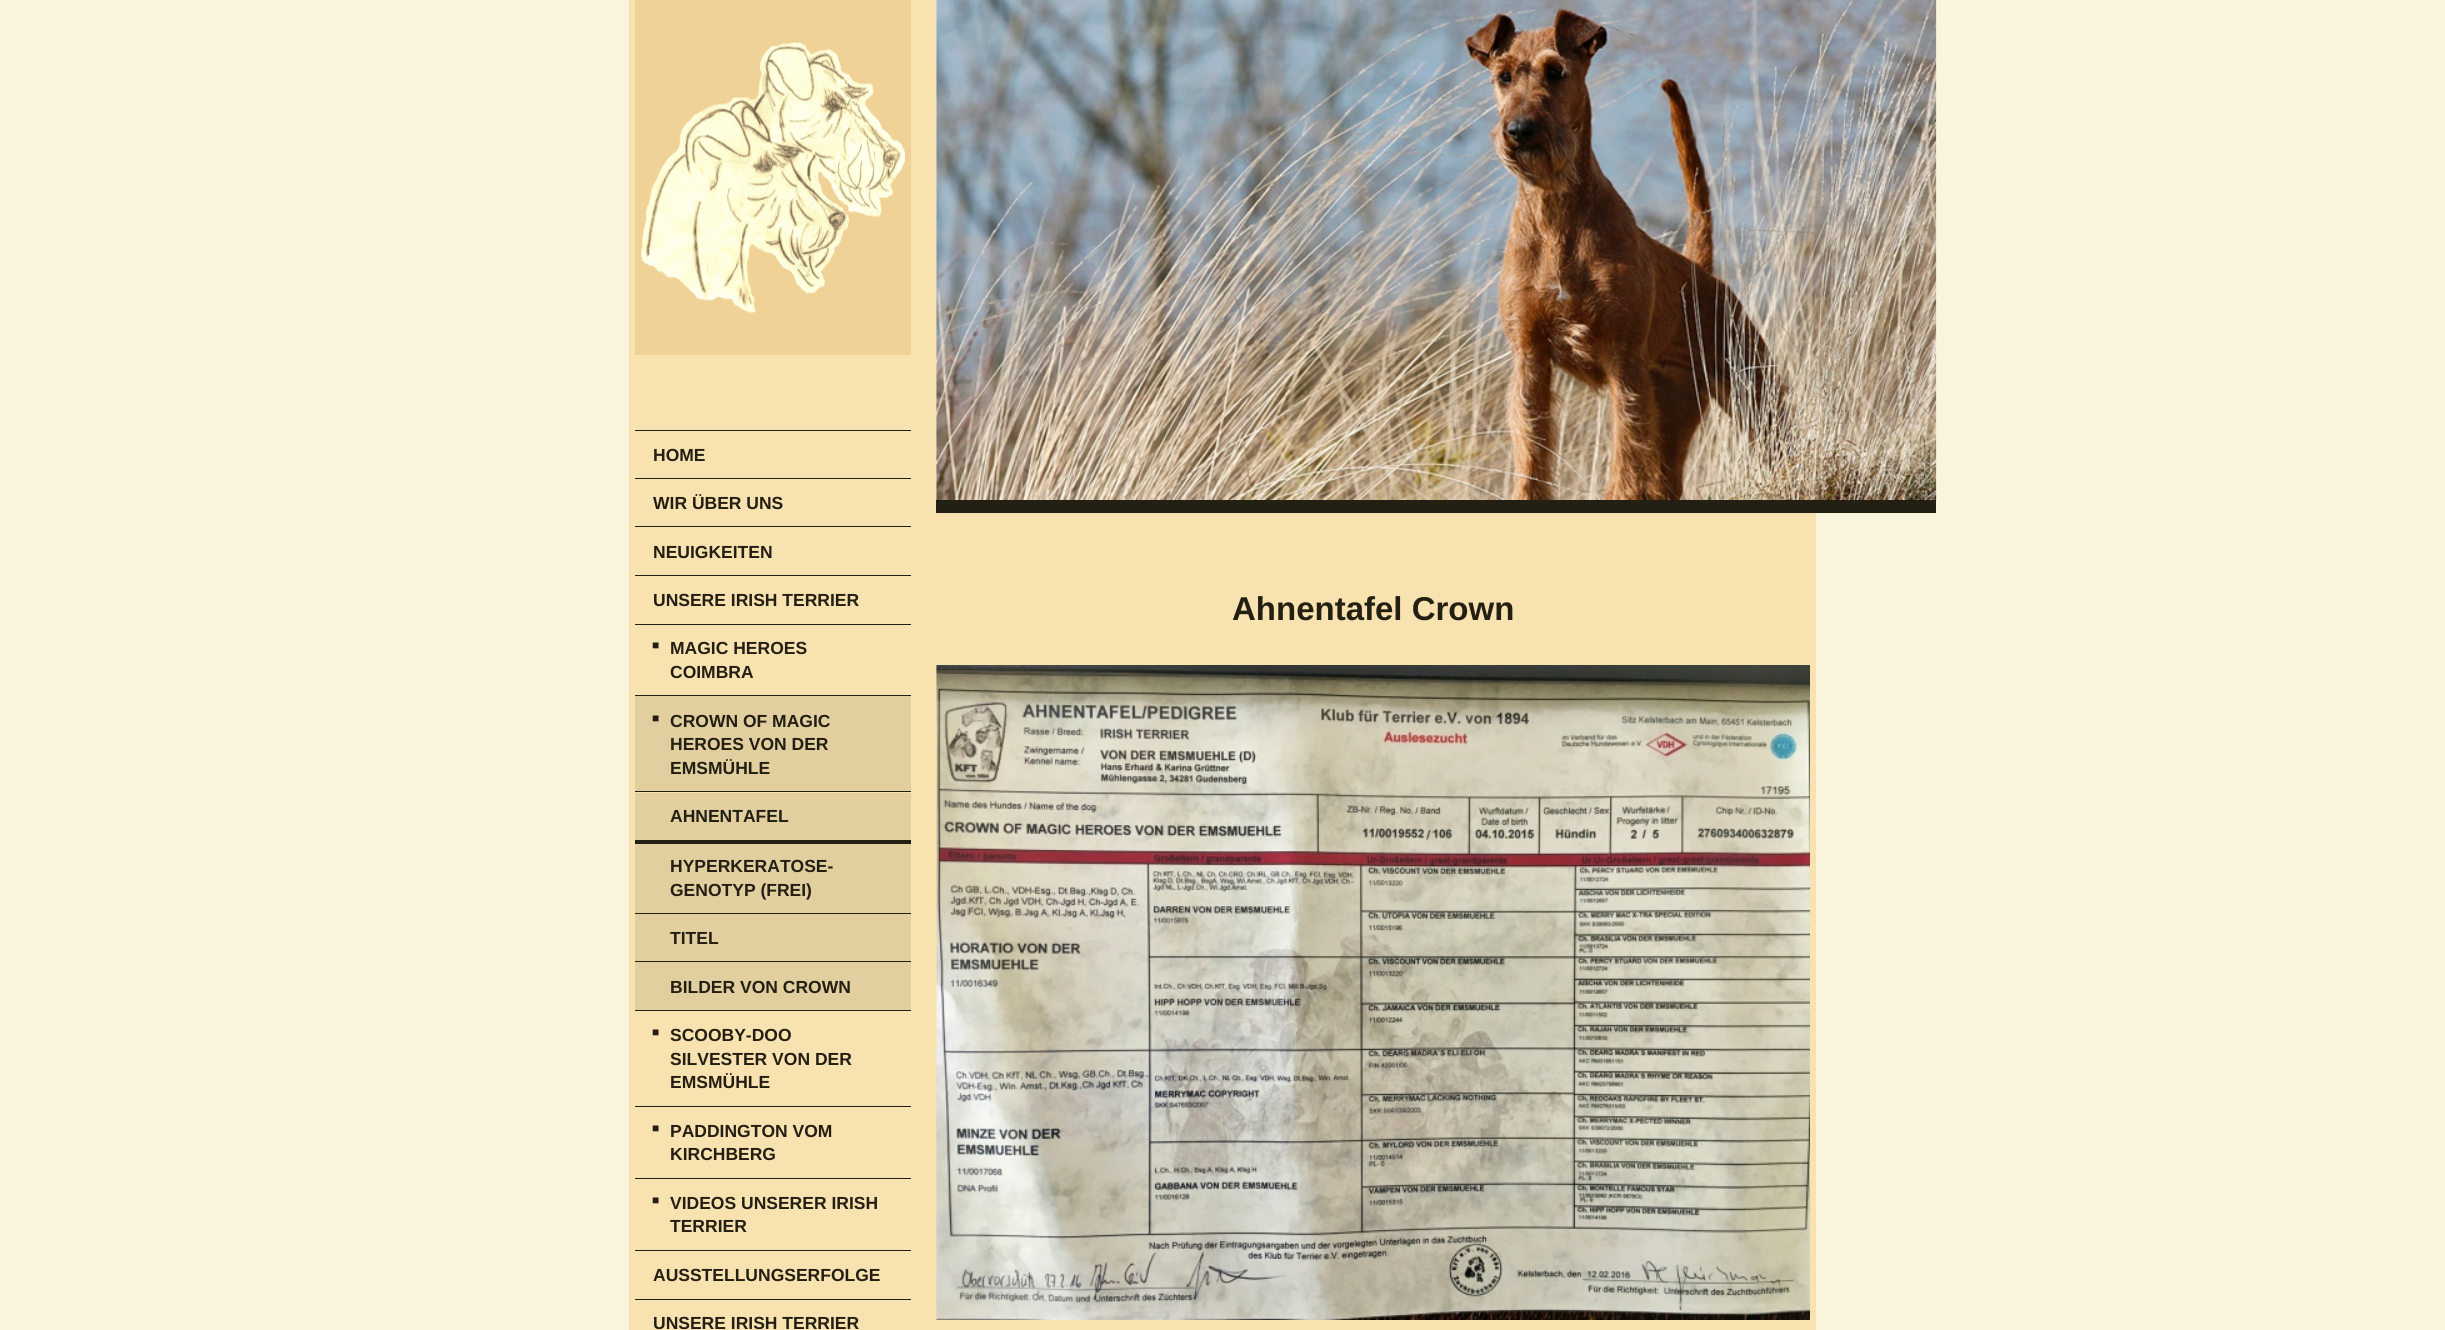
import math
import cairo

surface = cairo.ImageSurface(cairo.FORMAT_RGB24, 2445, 1330)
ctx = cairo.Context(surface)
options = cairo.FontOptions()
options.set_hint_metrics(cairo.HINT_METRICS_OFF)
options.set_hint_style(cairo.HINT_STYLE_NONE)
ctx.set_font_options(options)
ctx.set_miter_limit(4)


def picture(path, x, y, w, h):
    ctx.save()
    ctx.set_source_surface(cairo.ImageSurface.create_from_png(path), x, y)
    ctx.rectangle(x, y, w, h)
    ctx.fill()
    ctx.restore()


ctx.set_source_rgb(0.984, 0.957, 0.863)
ctx.paint()
ctx.set_source_rgb(0.965, 0.886, 0.69)
ctx.rectangle(629, 0, 1187, 1330)
ctx.fill()
ctx.set_source_rgb(0.941, 0.824, 0.588)
ctx.rectangle(635, 0, 276, 355)
ctx.fill()
picture("img1.png", 641, 42, 264, 271)
ctx.set_source_rgb(0.141, 0.122, 0.075)
ctx.rectangle(635, 430, 276, 1)
ctx.fill()
ctx.rectangle(635, 478, 276, 1)
ctx.fill()
ctx.select_font_face("Liberation Sans", cairo.FONT_SLANT_NORMAL, cairo.FONT_WEIGHT_BOLD)
ctx.set_font_size(17.5)
ctx.move_to(653, 461)
ctx.show_text("HOME")
ctx.rectangle(635, 526, 276, 1)
ctx.fill()
ctx.move_to(653, 509)
ctx.show_text("WIR ÜBER UNS")
ctx.rectangle(635, 575, 276, 1)
ctx.fill()
ctx.move_to(653, 558)
ctx.show_text("NEUIGKEITEN")
ctx.rectangle(635, 624, 276, 1)
ctx.fill()
ctx.move_to(653, 606)
ctx.show_text("UNSERE IRISH TERRIER")
ctx.rectangle(635, 1250, 276, 1)
ctx.fill()
ctx.rectangle(635, 695, 276, 1)
ctx.fill()
ctx.set_font_size(12)
ctx.move_to(652, 649)
ctx.show_text("■")
ctx.set_font_size(17.5)
ctx.move_to(670, 654)
ctx.show_text("MAGIC HEROES")
ctx.move_to(670, 678)
ctx.show_text("COIMBRA")
ctx.rectangle(635, 791, 276, 1)
ctx.fill()
ctx.set_source_rgb(0.882, 0.812, 0.627)
ctx.rectangle(635, 696, 276, 95)
ctx.fill()
ctx.set_font_size(12)
ctx.set_source_rgb(0.141, 0.122, 0.075)
ctx.move_to(652, 722)
ctx.show_text("■")
ctx.set_font_size(17.5)
ctx.move_to(670, 727)
ctx.show_text("CROWN OF MAGIC")
ctx.move_to(670, 750)
ctx.show_text("HEROES VON DER")
ctx.move_to(670, 774)
ctx.show_text("EMSMÜHLE")
ctx.rectangle(635, 1010, 276, 1)
ctx.fill()
ctx.set_source_rgb(0.882, 0.812, 0.627)
ctx.rectangle(635, 793, 276, 217)
ctx.fill()
ctx.set_source_rgb(0.141, 0.122, 0.075)
ctx.rectangle(635, 840, 276, 4)
ctx.fill()
ctx.move_to(670, 822)
ctx.show_text("AHNENTAFEL")
ctx.rectangle(635, 913, 276, 1)
ctx.fill()
ctx.move_to(670, 872)
ctx.show_text("HYPERKERATOSE-")
ctx.move_to(670, 896)
ctx.show_text("GENOTYP (FREI)")
ctx.rectangle(635, 961, 276, 1)
ctx.fill()
ctx.move_to(670, 944)
ctx.show_text("TITEL")
ctx.move_to(670, 993)
ctx.show_text("BILDER VON CROWN")
ctx.rectangle(635, 1106, 276, 1)
ctx.fill()
ctx.set_font_size(12)
ctx.move_to(652, 1036)
ctx.show_text("■")
ctx.set_font_size(17.5)
ctx.move_to(670, 1041)
ctx.show_text("SCOOBY-DOO")
ctx.move_to(670, 1065)
ctx.show_text("SILVESTER VON DER")
ctx.move_to(670, 1088)
ctx.show_text("EMSMÜHLE")
ctx.rectangle(635, 1178, 276, 1)
ctx.fill()
ctx.set_font_size(12)
ctx.move_to(652, 1132)
ctx.show_text("■")
ctx.set_font_size(17.5)
ctx.move_to(670, 1137)
ctx.show_text("PADDINGTON VOM")
ctx.move_to(670, 1160)
ctx.show_text("KIRCHBERG")
ctx.set_font_size(12)
ctx.move_to(652, 1204)
ctx.show_text("■")
ctx.set_font_size(17.5)
ctx.move_to(670, 1209)
ctx.show_text("VIDEOS UNSERER IRISH")
ctx.move_to(670, 1232)
ctx.show_text("TERRIER")
ctx.rectangle(635, 1299, 276, 1)
ctx.fill()
ctx.move_to(653, 1281)
ctx.show_text("AUSSTELLUNGSERFOLGE")
ctx.move_to(653, 1329)
ctx.show_text("UNSERE IRISH TERRIER")
ctx.rectangle(936, 500, 1000, 13)
ctx.fill()
ctx.set_source_rgb(0.933, 0.933, 0.933)
ctx.rectangle(936, 0, 1, 500)
ctx.fill()
picture("img3.png", 1936, 0, 1, 500)
picture("img2.png", 936, 0, 1001, 500)
ctx.set_font_size(33)
ctx.set_source_rgb(0.141, 0.122, 0.075)
ctx.move_to(1232, 620)
ctx.show_text("Ahnentafel Crown")
picture("img4.png", 936, 665, 874, 655)
surface.write_to_png("page.png")
